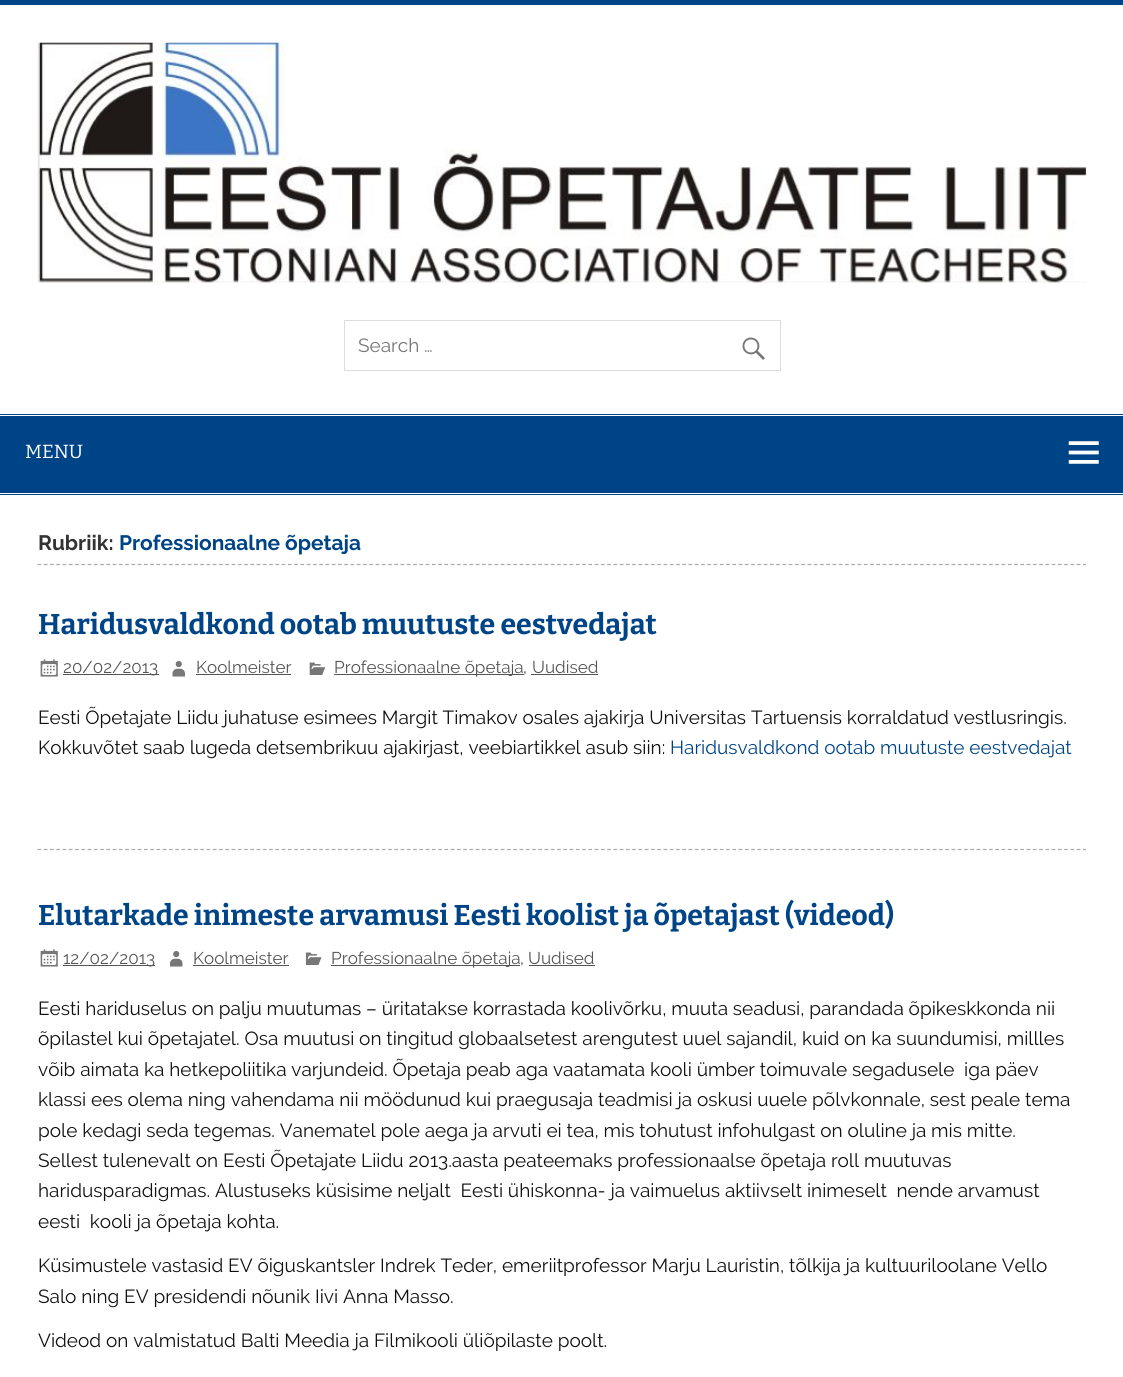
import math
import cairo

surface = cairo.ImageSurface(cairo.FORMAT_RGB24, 1123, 1377)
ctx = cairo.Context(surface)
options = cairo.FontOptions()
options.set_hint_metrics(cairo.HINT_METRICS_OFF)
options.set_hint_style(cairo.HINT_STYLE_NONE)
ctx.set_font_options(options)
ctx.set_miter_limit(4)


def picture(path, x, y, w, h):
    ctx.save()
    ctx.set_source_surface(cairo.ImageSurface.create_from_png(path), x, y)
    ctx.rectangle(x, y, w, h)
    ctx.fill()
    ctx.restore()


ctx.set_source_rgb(1, 1, 1)
ctx.paint()
ctx.set_source_rgb(0, 0.267, 0.533)
ctx.rectangle(0, 0, 1123, 5)
ctx.fill()
picture("img1.png", 37, 42, 1050, 241)
ctx.rectangle(344.5, 320.5, 436, 50)
ctx.set_source_rgb(0.867, 0.867, 0.867)
ctx.set_line_width(1)
ctx.stroke()
ctx.select_font_face("Raleway")
ctx.set_font_size(19)
ctx.set_source_rgb(0.459, 0.459, 0.459)
ctx.move_to(358, 352)
ctx.show_text("Search …")
picture("img2.png", 742, 337, 23, 23)
ctx.set_source_rgb(0, 0.267, 0.533)
ctx.rectangle(0, 414, 1123, 1)
ctx.fill()
ctx.rectangle(0, 494, 1123, 1)
ctx.fill()
ctx.rectangle(0, 416, 1123, 77)
ctx.fill()
ctx.select_font_face("Bitter")
ctx.set_source_rgb(1, 1, 1)
ctx.move_to(25, 458)
ctx.show_text("MENU")
picture("img3.png", 1068, 441, 31, 23)
ctx.new_path()
ctx.move_to(37.5, 564.5)
ctx.line_to(1086, 564.5)
ctx.set_source_rgb(0.667, 0.667, 0.667)
ctx.set_line_width(1.2)
ctx.set_dash([3.75, 2.51])
ctx.stroke()
ctx.select_font_face("Raleway", cairo.FONT_SLANT_NORMAL, cairo.FONT_WEIGHT_BOLD)
ctx.set_font_size(20.9)
ctx.set_source_rgb(0.2, 0.2, 0.2)
ctx.move_to(38, 550)
ctx.show_text("Rubriik:")
ctx.set_source_rgb(0, 0.267, 0.533)
ctx.move_to(119, 550)
ctx.show_text("Professionaalne õpetaja")
ctx.new_path()
ctx.move_to(37.5, 849.5)
ctx.line_to(1086, 849.5)
ctx.set_source_rgb(0.667, 0.667, 0.667)
ctx.stroke()
ctx.select_font_face("Bitter", cairo.FONT_SLANT_NORMAL, cairo.FONT_WEIGHT_BOLD)
ctx.set_font_size(28.5)
ctx.set_source_rgb(0, 0.267, 0.533)
ctx.move_to(38, 634)
ctx.show_text("Haridusvaldkond ootab muutuste eestvedajat")
picture("img4.png", 40, 659, 18, 18)
ctx.set_source_rgb(0.333, 0.333, 0.333)
ctx.rectangle(63, 674, 96, 1)
ctx.fill()
ctx.select_font_face("Raleway")
ctx.set_font_size(17.1)
ctx.move_to(63, 673)
ctx.show_text("20/02/2013")
picture("img5.png", 172, 661, 13, 16)
ctx.move_to(196, 673)
ctx.show_text("Koolmeister")
ctx.rectangle(196, 674, 95, 1)
ctx.fill()
picture("img6.png", 309, 662, 17, 13)
ctx.rectangle(334, 674, 190, 1)
ctx.fill()
ctx.move_to(334, 673)
ctx.show_text("Professionaalne õpetaja")
ctx.set_source_rgb(0.2, 0.2, 0.2)
ctx.move_to(523, 673)
ctx.show_text(",")
ctx.set_source_rgb(0.333, 0.333, 0.333)
ctx.move_to(532, 673)
ctx.show_text("Uudised")
ctx.rectangle(531, 674, 67, 1)
ctx.fill()
ctx.set_font_size(19)
ctx.set_source_rgb(0.067, 0.067, 0.067)
ctx.move_to(38, 724)
ctx.show_text("Eesti Õpetajate Liidu juhatuse esimees Margit Timakov osales ajakirja Universitas Tartuensis korraldatud vestlusringis.")
ctx.move_to(38, 754)
ctx.show_text("Kokkuvõtet saab lugeda detsembrikuu ajakirjast, veebiartikkel asub siin:")
ctx.set_source_rgb(0, 0.267, 0.533)
ctx.move_to(670, 754)
ctx.show_text("Haridusvaldkond ootab muutuste eestvedajat")
ctx.select_font_face("Bitter", cairo.FONT_SLANT_NORMAL, cairo.FONT_WEIGHT_BOLD)
ctx.set_font_size(28.5)
ctx.move_to(38, 925)
ctx.show_text("Elutarkade inimeste arvamusi Eesti koolist ja õpetajast (videod)")
picture("img4.png", 40, 949, 18, 18)
ctx.set_source_rgb(0.333, 0.333, 0.333)
ctx.rectangle(63, 965, 92, 1)
ctx.fill()
ctx.select_font_face("Raleway")
ctx.set_font_size(17.1)
ctx.move_to(63, 964)
ctx.show_text("12/02/2013")
picture("img7.png", 170, 951, 13, 16)
ctx.move_to(193, 964)
ctx.show_text("Koolmeister")
ctx.rectangle(193, 965, 96, 1)
ctx.fill()
picture("img8.png", 305, 952, 17, 13)
ctx.rectangle(331, 965, 189, 1)
ctx.fill()
ctx.move_to(331, 964)
ctx.show_text("Professionaalne õpetaja")
ctx.set_source_rgb(0.2, 0.2, 0.2)
ctx.move_to(520, 964)
ctx.show_text(",")
ctx.set_source_rgb(0.333, 0.333, 0.333)
ctx.move_to(528, 964)
ctx.show_text("Uudised")
ctx.rectangle(529, 965, 66, 1)
ctx.fill()
ctx.set_font_size(19)
ctx.set_source_rgb(0.067, 0.067, 0.067)
ctx.move_to(38, 1015)
ctx.show_text("Eesti hariduselus on palju muutumas – üritatakse korrastada koolivõrku, muuta seadusi, parandada õpikeskkonda nii")
ctx.move_to(38, 1045)
ctx.show_text("õpilastel kui õpetajatel. Osa muutusi on tingitud globaalsetest arengutest uuel sajandil, kuid on ka suundumisi, millles")
ctx.move_to(38, 1076)
ctx.show_text("võib aimata ka hetkepoliitika varjundeid. Õpetaja peab aga vaatamata kooli ümber toimuvale segadusele  iga päev")
ctx.move_to(38, 1106)
ctx.show_text("klassi ees olema ning vahendama nii möödunud kui praegusaja teadmisi ja oskusi uuele põlvkonnale, sest peale tema")
ctx.move_to(38, 1137)
ctx.show_text("pole kedagi seda tegemas. Vanematel pole aega ja arvuti ei tea, mis tohutust infohulgast on oluline ja mis mitte.")
ctx.move_to(38, 1167)
ctx.show_text("Sellest tulenevalt on Eesti Õpetajate Liidu 2013.aasta peateemaks professionaalse õpetaja roll muutuvas")
ctx.move_to(38, 1197)
ctx.show_text("haridusparadigmas. Alustuseks küsisime neljalt  Eesti ühiskonna- ja vaimuelus aktiivselt inimeselt  nende arvamust")
ctx.move_to(38, 1228)
ctx.show_text("eesti  kooli ja õpetaja kohta.")
ctx.move_to(38, 1272)
ctx.show_text("Küsimustele vastasid EV õiguskantsler Indrek Teder, emeriitprofessor Marju Lauristin, tõlkija ja kultuuriloolane Vello")
ctx.move_to(38, 1303)
ctx.show_text("Salo ning EV presidendi nõunik Iivi Anna Masso.")
ctx.move_to(38, 1347)
ctx.show_text("Videod on valmistatud Balti Meedia ja Filmikooli üliõpilaste poolt.")
surface.write_to_png("page.png")
